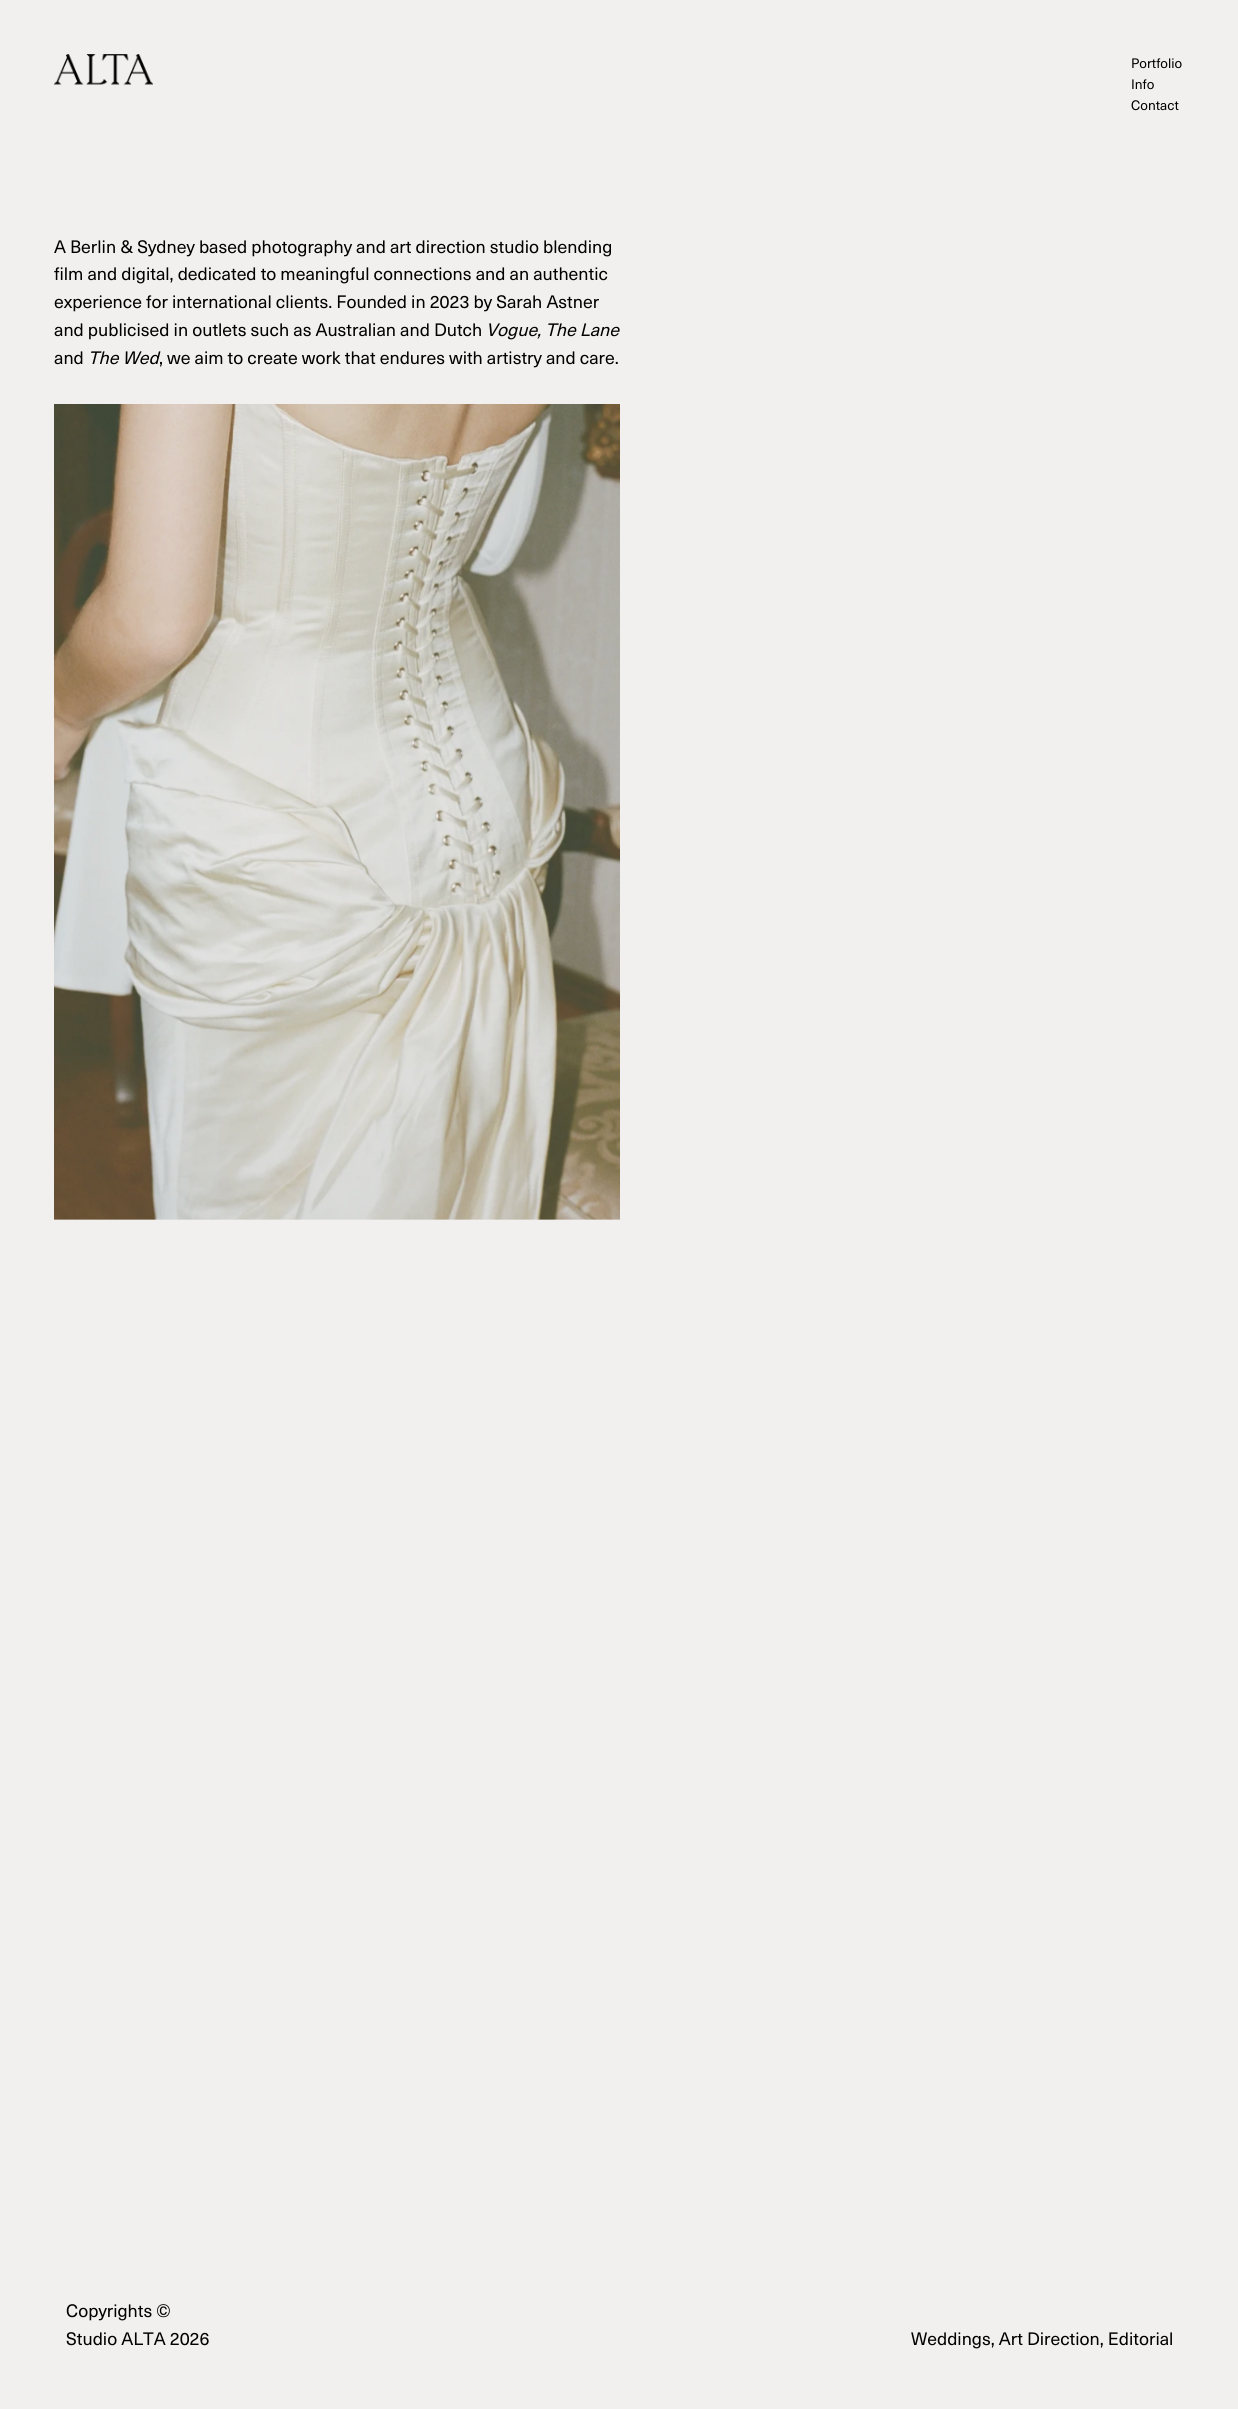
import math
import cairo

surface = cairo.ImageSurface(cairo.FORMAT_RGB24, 1238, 2409)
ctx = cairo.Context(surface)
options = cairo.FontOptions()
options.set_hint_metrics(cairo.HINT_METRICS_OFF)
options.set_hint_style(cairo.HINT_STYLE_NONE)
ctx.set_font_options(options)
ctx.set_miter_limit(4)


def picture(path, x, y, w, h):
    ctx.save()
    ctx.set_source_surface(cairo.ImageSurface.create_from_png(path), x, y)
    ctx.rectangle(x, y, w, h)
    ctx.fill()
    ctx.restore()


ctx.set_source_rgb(0.945, 0.941, 0.933)
ctx.paint()
picture("img1.png", 54, 54, 99, 31)
ctx.select_font_face("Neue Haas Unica")
ctx.set_font_size(13.5)
ctx.set_source_rgb(0, 0, 0)
ctx.move_to(1131, 68)
ctx.show_text("Portfolio")
ctx.move_to(1131, 89)
ctx.show_text("Info")
ctx.move_to(1131, 110)
ctx.show_text("Contact")
ctx.set_font_size(17.7)
ctx.move_to(54, 253)
ctx.show_text("A Berlin & Sydney based photography and art direction studio blending")
ctx.move_to(54, 280)
ctx.show_text("film and digital, dedicated to meaningful connections and an authentic")
ctx.move_to(54, 308)
ctx.show_text("experience for international clients. Founded in 2023 by Sarah Astner")
ctx.move_to(54, 336)
ctx.show_text("and publicised in outlets such as Australian and Dutch")
ctx.select_font_face("Neue Haas Unica", cairo.FONT_SLANT_ITALIC)
ctx.move_to(486, 336)
ctx.show_text("Vogue, The Lane")
ctx.select_font_face("Neue Haas Unica")
ctx.move_to(54, 364)
ctx.show_text("and")
ctx.select_font_face("Neue Haas Unica", cairo.FONT_SLANT_ITALIC)
ctx.move_to(88, 364)
ctx.show_text("The Wed")
ctx.select_font_face("Neue Haas Unica")
ctx.move_to(159, 364)
ctx.show_text(", we aim to create work that endures with artistry and care.")
picture("img2.png", 54, 404, 566, 816)
ctx.move_to(66, 2317)
ctx.show_text("Copyrights ©")
ctx.move_to(66, 2345)
ctx.show_text("Studio ALTA 2026")
ctx.move_to(911, 2345)
ctx.show_text("Weddings, Art Direction, Editorial")
surface.write_to_png("page.png")
